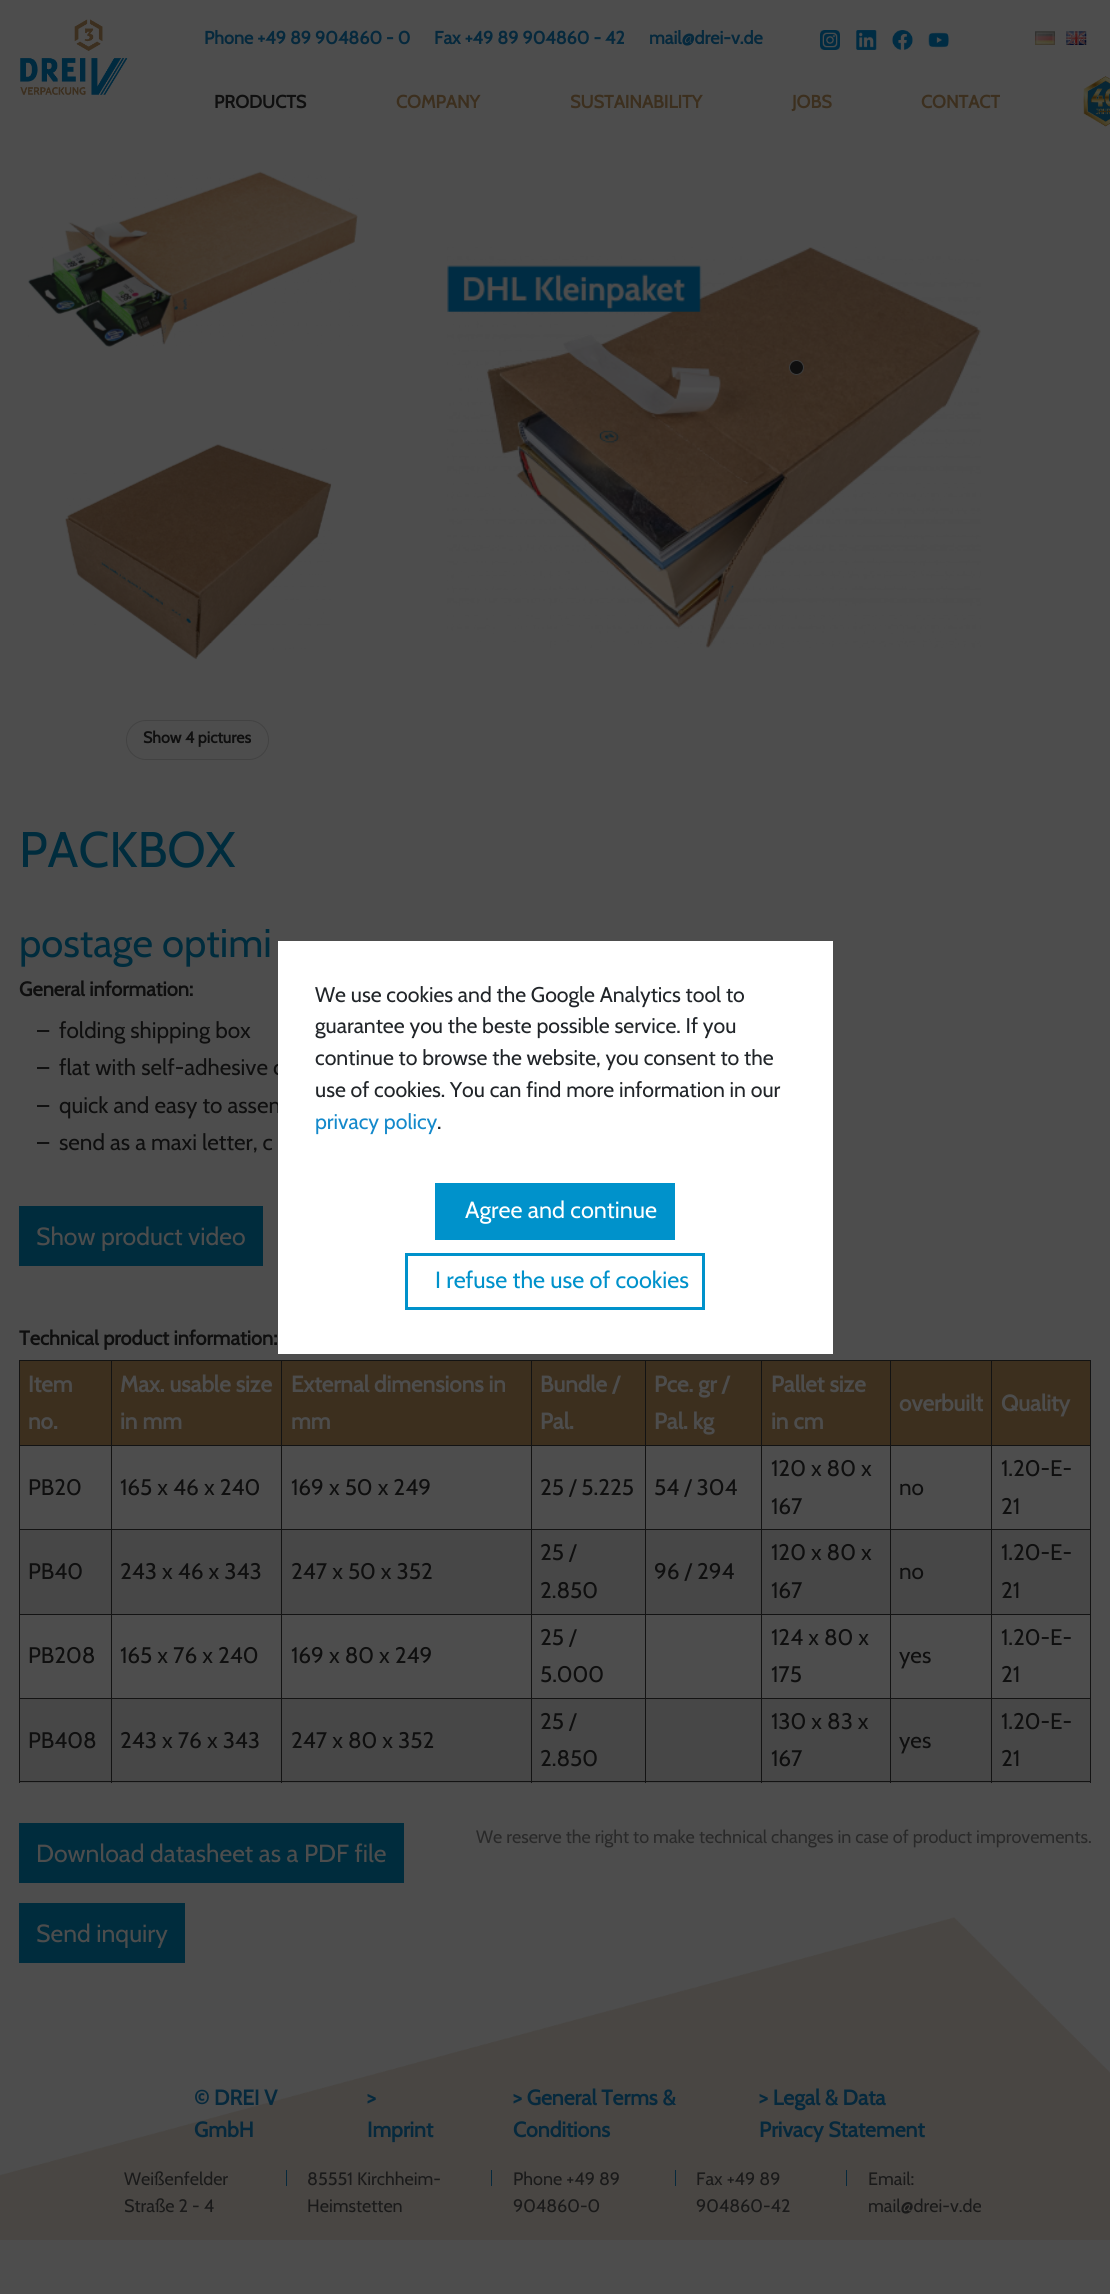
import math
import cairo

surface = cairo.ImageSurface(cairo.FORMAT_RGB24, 1110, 2294)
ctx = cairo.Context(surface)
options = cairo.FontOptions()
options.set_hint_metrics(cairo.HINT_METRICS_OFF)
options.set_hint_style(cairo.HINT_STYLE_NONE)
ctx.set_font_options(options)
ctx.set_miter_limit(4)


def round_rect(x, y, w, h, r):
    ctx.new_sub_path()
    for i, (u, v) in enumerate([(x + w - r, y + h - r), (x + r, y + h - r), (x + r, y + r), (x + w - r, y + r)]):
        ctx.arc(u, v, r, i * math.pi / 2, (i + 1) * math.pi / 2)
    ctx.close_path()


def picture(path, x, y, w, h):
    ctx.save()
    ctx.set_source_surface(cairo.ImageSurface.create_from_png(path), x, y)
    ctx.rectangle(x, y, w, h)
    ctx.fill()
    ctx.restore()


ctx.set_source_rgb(0.302, 0.302, 0.302)
ctx.paint()
picture("img1.png", 0, 1917, 1110, 323)
picture("img2.png", 20, 19, 108, 76)
ctx.select_font_face("Cabin", cairo.FONT_SLANT_NORMAL, cairo.FONT_WEIGHT_BOLD)
ctx.set_font_size(18)
ctx.set_source_rgb(0.024, 0.161, 0.239)
ctx.move_to(204, 44)
ctx.show_text("Phone +49 89 904860 - 0")
ctx.move_to(434, 44)
ctx.show_text("Fax +49 89 904860 - 42")
ctx.move_to(649, 44)
ctx.show_text("mail@drei-v.de")
picture("img3.png", 820, 30, 20, 20)
picture("img4.png", 856, 30, 21, 20)
picture("img5.png", 892, 30, 21, 20)
picture("img6.png", 928, 32, 21, 16)
picture("img7.png", 1035, 31, 20, 14)
picture("img8.png", 1066, 31, 21, 14)
ctx.select_font_face("Cabin")
ctx.set_font_size(12)
ctx.set_source_rgb(0.259, 0.192, 0.208)
ctx.move_to(1070, 44)
ctx.show_text("EN")
ctx.select_font_face("Cabin", cairo.FONT_SLANT_NORMAL, cairo.FONT_WEIGHT_BOLD)
ctx.set_font_size(18)
ctx.set_source_rgb(0.059, 0.059, 0.059)
ctx.move_to(214, 108)
ctx.show_text("PRODUCTS")
ctx.set_source_rgb(0.235, 0.184, 0.118)
ctx.move_to(396, 108)
ctx.show_text("COMPANY")
ctx.move_to(570, 108)
ctx.show_text("SUSTAINABILITY")
ctx.move_to(792, 108)
ctx.show_text("JOBS")
ctx.move_to(921, 108)
ctx.show_text("CONTACT")
picture("img9.png", 1083, 76, 27, 51)
ctx.select_font_face("Cabin")
ctx.set_font_size(22.5)
ctx.set_source_rgb(0.059, 0.059, 0.059)
ctx.move_to(59, 1075)
ctx.show_text("flat with self-adhesive c")
ctx.move_to(59, 1113)
ctx.show_text("quick and easy to assem")
ctx.set_source_rgb(1, 1, 1)
ctx.rectangle(278, 941, 555, 413)
ctx.fill()
ctx.set_font_size(21.25)
ctx.set_source_rgb(0.129, 0.145, 0.161)
ctx.move_to(315, 1002)
ctx.show_text("We use cookies and the Google Analytics tool to")
ctx.move_to(315, 1033)
ctx.show_text("guarantee you the beste possible service. If you")
ctx.move_to(315, 1065)
ctx.show_text("continue to browse the website, you consent to the")
ctx.move_to(315, 1097)
ctx.show_text("use of cookies. You can find more information in our")
ctx.set_source_rgb(0.082, 0.537, 0.796)
ctx.move_to(315, 1129)
ctx.show_text("privacy policy")
ctx.set_source_rgb(0.129, 0.145, 0.161)
ctx.move_to(437, 1129)
ctx.show_text(".")
ctx.set_source_rgb(0, 0.573, 0.796)
ctx.rectangle(435, 1183, 240, 57)
ctx.fill()
ctx.set_font_size(23.4)
ctx.set_source_rgb(1, 1, 1)
ctx.move_to(465, 1218)
ctx.show_text("Agree and continue")
ctx.rectangle(406.5, 1254.5, 297, 54)
ctx.set_source_rgb(0, 0.573, 0.796)
ctx.set_line_width(3)
ctx.stroke()
ctx.move_to(435, 1288)
ctx.show_text("I refuse the use of cookies")
picture("img10.png", 447, 247, 534, 401)
ctx.set_source_rgb(0.059, 0.059, 0.059)
ctx.arc(796.5, 367.5, 7, 0, 2 * math.pi)
ctx.fill_preserve()
ctx.set_source_rgb(0.239, 0.239, 0.239)
ctx.set_line_width(1)
ctx.stroke()
picture("img11.png", 28, 171, 330, 176)
picture("img12.png", 65, 444, 267, 216)
round_rect(126.5, 720.5, 142, 39, 19.5)
ctx.set_source_rgb(0.259, 0.259, 0.259)
ctx.stroke()
ctx.select_font_face("Cabin", cairo.FONT_SLANT_NORMAL, cairo.FONT_WEIGHT_BOLD)
ctx.set_font_size(16)
ctx.set_source_rgb(0.059, 0.059, 0.059)
ctx.move_to(143, 743)
ctx.show_text("Show 4 pictures")
ctx.select_font_face("Cabin")
ctx.set_font_size(50)
ctx.set_source_rgb(0, 0.173, 0.239)
ctx.move_to(19, 867)
ctx.show_text("PACKBOX")
ctx.set_font_size(40)
ctx.move_to(19, 957)
ctx.show_text("postage optimi")
ctx.select_font_face("Cabin", cairo.FONT_SLANT_NORMAL, cairo.FONT_WEIGHT_BOLD)
ctx.set_font_size(20)
ctx.set_source_rgb(0.059, 0.059, 0.059)
ctx.move_to(19, 996)
ctx.show_text("General information:")
ctx.select_font_face("Cabin")
ctx.set_font_size(22.5)
ctx.move_to(37, 1038)
ctx.show_text("–")
ctx.move_to(59, 1038)
ctx.show_text("folding shipping box")
ctx.move_to(37, 1075)
ctx.show_text("–")
ctx.move_to(37, 1113)
ctx.show_text("–")
ctx.move_to(37, 1150)
ctx.show_text("–")
ctx.move_to(59, 1150)
ctx.show_text("send as a maxi letter, c")
ctx.set_source_rgb(0, 0.173, 0.239)
ctx.rectangle(19, 1206, 244, 60)
ctx.fill()
ctx.set_font_size(24.75)
ctx.set_source_rgb(0.302, 0.302, 0.302)
ctx.move_to(36, 1245)
ctx.show_text("Show product video")
ctx.select_font_face("Cabin", cairo.FONT_SLANT_NORMAL, cairo.FONT_WEIGHT_BOLD)
ctx.set_font_size(20)
ctx.set_source_rgb(0.059, 0.059, 0.059)
ctx.move_to(19, 1345)
ctx.show_text("Technical product information:")
ctx.set_source_rgb(0.078, 0.078, 0.078)
ctx.rectangle(19, 1360, 1072, 1)
ctx.fill()
ctx.rectangle(1090, 1360, 1, 423)
ctx.fill()
ctx.set_source_rgb(0.278, 0.278, 0.278)
ctx.rectangle(532, 1699, 113, 84)
ctx.fill()
ctx.rectangle(646, 1699, 244, 84)
ctx.fill()
ctx.rectangle(20, 1699, 91, 84)
ctx.fill()
ctx.rectangle(112, 1699, 419, 84)
ctx.fill()
ctx.rectangle(891, 1699, 199, 84)
ctx.fill()
ctx.set_source_rgb(0.078, 0.078, 0.078)
ctx.rectangle(19, 1781, 1072, 1)
ctx.fill()
ctx.rectangle(19, 1360, 1, 423)
ctx.fill()
ctx.set_source_rgb(0.235, 0.184, 0.118)
ctx.rectangle(20, 1361, 1070, 84)
ctx.fill()
ctx.set_font_size(22.5)
ctx.set_source_rgb(0.302, 0.302, 0.302)
ctx.move_to(28, 1392)
ctx.show_text("Item")
ctx.move_to(28, 1429)
ctx.show_text("no.")
ctx.set_source_rgb(0.078, 0.078, 0.078)
ctx.rectangle(991, 1445, 100, 1)
ctx.fill()
ctx.rectangle(991, 1529, 100, 1)
ctx.fill()
ctx.set_source_rgb(0.278, 0.278, 0.278)
ctx.rectangle(891, 1530, 199, 84)
ctx.fill()
ctx.set_source_rgb(0.078, 0.078, 0.078)
ctx.rectangle(991, 1614, 100, 1)
ctx.fill()
ctx.rectangle(991, 1698, 100, 1)
ctx.fill()
ctx.rectangle(991, 1698, 1, 85)
ctx.fill()
ctx.rectangle(890, 1698, 103, 1)
ctx.fill()
ctx.rectangle(991, 1614, 1, 85)
ctx.fill()
ctx.rectangle(890, 1614, 103, 1)
ctx.fill()
ctx.rectangle(991, 1529, 1, 86)
ctx.fill()
ctx.rectangle(890, 1529, 103, 1)
ctx.fill()
ctx.rectangle(991, 1445, 1, 85)
ctx.fill()
ctx.rectangle(890, 1445, 103, 1)
ctx.fill()
ctx.rectangle(890, 1698, 1, 85)
ctx.fill()
ctx.rectangle(761, 1698, 130, 1)
ctx.fill()
ctx.rectangle(890, 1614, 1, 85)
ctx.fill()
ctx.rectangle(761, 1614, 130, 1)
ctx.fill()
ctx.rectangle(890, 1529, 1, 86)
ctx.fill()
ctx.rectangle(761, 1529, 130, 1)
ctx.fill()
ctx.rectangle(890, 1445, 1, 85)
ctx.fill()
ctx.rectangle(761, 1445, 130, 1)
ctx.fill()
ctx.set_source_rgb(0.278, 0.278, 0.278)
ctx.rectangle(646, 1530, 244, 84)
ctx.fill()
ctx.set_source_rgb(0.078, 0.078, 0.078)
ctx.rectangle(761, 1698, 1, 85)
ctx.fill()
ctx.rectangle(645, 1698, 118, 1)
ctx.fill()
ctx.rectangle(761, 1614, 1, 85)
ctx.fill()
ctx.rectangle(645, 1614, 118, 1)
ctx.fill()
ctx.rectangle(761, 1529, 1, 86)
ctx.fill()
ctx.rectangle(645, 1529, 118, 1)
ctx.fill()
ctx.rectangle(761, 1445, 1, 85)
ctx.fill()
ctx.rectangle(645, 1445, 118, 1)
ctx.fill()
ctx.rectangle(645, 1698, 1, 85)
ctx.fill()
ctx.rectangle(531, 1698, 115, 1)
ctx.fill()
ctx.rectangle(645, 1614, 1, 85)
ctx.fill()
ctx.rectangle(531, 1614, 115, 1)
ctx.fill()
ctx.rectangle(645, 1529, 1, 86)
ctx.fill()
ctx.rectangle(531, 1529, 115, 1)
ctx.fill()
ctx.rectangle(645, 1445, 1, 85)
ctx.fill()
ctx.rectangle(531, 1445, 115, 1)
ctx.fill()
ctx.rectangle(531, 1698, 1, 85)
ctx.fill()
ctx.rectangle(281, 1698, 252, 1)
ctx.fill()
ctx.rectangle(531, 1614, 1, 85)
ctx.fill()
ctx.rectangle(281, 1614, 252, 1)
ctx.fill()
ctx.rectangle(531, 1529, 1, 86)
ctx.fill()
ctx.rectangle(281, 1529, 252, 1)
ctx.fill()
ctx.rectangle(531, 1445, 1, 85)
ctx.fill()
ctx.rectangle(281, 1445, 252, 1)
ctx.fill()
ctx.set_source_rgb(0.278, 0.278, 0.278)
ctx.rectangle(112, 1530, 419, 84)
ctx.fill()
ctx.set_source_rgb(0.078, 0.078, 0.078)
ctx.rectangle(281, 1698, 1, 85)
ctx.fill()
ctx.rectangle(111, 1698, 172, 1)
ctx.fill()
ctx.rectangle(281, 1614, 1, 85)
ctx.fill()
ctx.rectangle(111, 1614, 172, 1)
ctx.fill()
ctx.rectangle(281, 1529, 1, 86)
ctx.fill()
ctx.rectangle(111, 1529, 172, 1)
ctx.fill()
ctx.rectangle(281, 1445, 1, 85)
ctx.fill()
ctx.rectangle(111, 1445, 172, 1)
ctx.fill()
ctx.rectangle(111, 1698, 1, 85)
ctx.fill()
ctx.rectangle(19, 1698, 94, 1)
ctx.fill()
ctx.rectangle(111, 1614, 1, 85)
ctx.fill()
ctx.rectangle(19, 1614, 94, 1)
ctx.fill()
ctx.rectangle(111, 1529, 1, 86)
ctx.fill()
ctx.rectangle(19, 1529, 94, 1)
ctx.fill()
ctx.rectangle(111, 1445, 1, 85)
ctx.fill()
ctx.rectangle(19, 1445, 94, 1)
ctx.fill()
ctx.rectangle(111, 1360, 1, 86)
ctx.fill()
ctx.set_source_rgb(0.302, 0.302, 0.302)
ctx.move_to(120, 1392)
ctx.show_text("Max. usable size")
ctx.move_to(120, 1429)
ctx.show_text("in mm")
ctx.set_source_rgb(0.078, 0.078, 0.078)
ctx.rectangle(281, 1360, 1, 86)
ctx.fill()
ctx.set_source_rgb(0.302, 0.302, 0.302)
ctx.move_to(291, 1392)
ctx.show_text("External dimensions in")
ctx.move_to(291, 1429)
ctx.show_text("mm")
ctx.set_source_rgb(0.078, 0.078, 0.078)
ctx.rectangle(531, 1360, 1, 86)
ctx.fill()
ctx.set_source_rgb(0.302, 0.302, 0.302)
ctx.move_to(540, 1392)
ctx.show_text("Bundle /")
ctx.move_to(540, 1429)
ctx.show_text("Pal.")
ctx.set_source_rgb(0.078, 0.078, 0.078)
ctx.rectangle(645, 1360, 1, 86)
ctx.fill()
ctx.set_source_rgb(0.302, 0.302, 0.302)
ctx.move_to(654, 1392)
ctx.show_text("Pce. gr /")
ctx.move_to(654, 1429)
ctx.show_text("Pal. kg")
ctx.set_source_rgb(0.078, 0.078, 0.078)
ctx.rectangle(761, 1360, 1, 86)
ctx.fill()
ctx.set_source_rgb(0.302, 0.302, 0.302)
ctx.move_to(771, 1392)
ctx.show_text("Pallet size")
ctx.move_to(771, 1429)
ctx.show_text("in cm")
ctx.set_source_rgb(0.078, 0.078, 0.078)
ctx.rectangle(890, 1360, 1, 86)
ctx.fill()
ctx.set_source_rgb(0.302, 0.302, 0.302)
ctx.move_to(899, 1411)
ctx.show_text("overbuilt")
ctx.set_source_rgb(0.078, 0.078, 0.078)
ctx.rectangle(991, 1360, 1, 86)
ctx.fill()
ctx.set_source_rgb(0.302, 0.302, 0.302)
ctx.move_to(1001, 1411)
ctx.show_text("Quality")
ctx.select_font_face("Cabin")
ctx.set_source_rgb(0.059, 0.059, 0.059)
ctx.move_to(28, 1495)
ctx.show_text("PB20")
ctx.move_to(120, 1495)
ctx.show_text("165 x 46 x 240")
ctx.move_to(291, 1495)
ctx.show_text("169 x 50 x 249")
ctx.move_to(540, 1495)
ctx.show_text("25 / 5.225")
ctx.move_to(654, 1495)
ctx.show_text("54 / 304")
ctx.move_to(771, 1476)
ctx.show_text("120 x 80 x")
ctx.move_to(771, 1514)
ctx.show_text("167")
ctx.move_to(899, 1495)
ctx.show_text("no")
ctx.move_to(1001, 1476)
ctx.show_text("1.20-E-")
ctx.move_to(1001, 1514)
ctx.show_text("21")
ctx.set_source_rgb(0.278, 0.278, 0.278)
ctx.rectangle(20, 1530, 91, 84)
ctx.fill()
ctx.set_source_rgb(0.059, 0.059, 0.059)
ctx.move_to(28, 1579)
ctx.show_text("PB40")
ctx.move_to(120, 1579)
ctx.show_text("243 x 46 x 343")
ctx.move_to(291, 1579)
ctx.show_text("247 x 50 x 352")
ctx.set_source_rgb(0.278, 0.278, 0.278)
ctx.rectangle(532, 1530, 113, 84)
ctx.fill()
ctx.set_source_rgb(0.059, 0.059, 0.059)
ctx.move_to(540, 1560)
ctx.show_text("25 /")
ctx.move_to(540, 1598)
ctx.show_text("2.850")
ctx.move_to(654, 1579)
ctx.show_text("96 / 294")
ctx.move_to(771, 1560)
ctx.show_text("120 x 80 x")
ctx.move_to(771, 1598)
ctx.show_text("167")
ctx.move_to(899, 1579)
ctx.show_text("no")
ctx.move_to(1001, 1560)
ctx.show_text("1.20-E-")
ctx.move_to(1001, 1598)
ctx.show_text("21")
ctx.move_to(28, 1663)
ctx.show_text("PB208")
ctx.move_to(120, 1663)
ctx.show_text("165 x 76 x 240")
ctx.move_to(291, 1663)
ctx.show_text("169 x 80 x 249")
ctx.move_to(540, 1645)
ctx.show_text("25 /")
ctx.move_to(540, 1682)
ctx.show_text("5.000")
ctx.move_to(771, 1645)
ctx.show_text("124 x 80 x")
ctx.move_to(771, 1682)
ctx.show_text("175")
ctx.move_to(899, 1663)
ctx.show_text("yes")
ctx.move_to(1001, 1645)
ctx.show_text("1.20-E-")
ctx.move_to(1001, 1682)
ctx.show_text("21")
ctx.move_to(540, 1729)
ctx.show_text("25 /")
ctx.move_to(540, 1766)
ctx.show_text("2.850")
ctx.move_to(28, 1748)
ctx.show_text("PB408")
ctx.move_to(120, 1748)
ctx.show_text("243 x 76 x 343")
ctx.move_to(291, 1748)
ctx.show_text("247 x 80 x 352")
ctx.move_to(771, 1729)
ctx.show_text("130 x 83 x")
ctx.move_to(771, 1766)
ctx.show_text("167")
ctx.move_to(899, 1748)
ctx.show_text("yes")
ctx.move_to(1001, 1729)
ctx.show_text("1.20-E-")
ctx.move_to(1001, 1766)
ctx.show_text("21")
ctx.set_font_size(18)
ctx.set_source_rgb(0.161, 0.161, 0.161)
ctx.move_to(476, 1843)
ctx.show_text("We reserve the right to make technical changes in case of product improvements.")
ctx.set_source_rgb(0, 0.173, 0.239)
ctx.rectangle(19, 1823, 385, 60)
ctx.fill()
ctx.set_font_size(24.75)
ctx.set_source_rgb(0.302, 0.302, 0.302)
ctx.move_to(36, 1862)
ctx.show_text("Download datasheet as a PDF file")
ctx.set_source_rgb(0, 0.173, 0.239)
ctx.rectangle(19, 1903, 166, 60)
ctx.fill()
ctx.set_source_rgb(0.302, 0.302, 0.302)
ctx.move_to(36, 1942)
ctx.show_text("Send inquiry")
ctx.select_font_face("Cabin", cairo.FONT_SLANT_NORMAL, cairo.FONT_WEIGHT_BOLD)
ctx.set_font_size(21.25)
ctx.set_source_rgb(0.024, 0.161, 0.239)
ctx.move_to(194, 2105)
ctx.show_text("© DREI V")
ctx.move_to(194, 2137)
ctx.show_text("GmbH")
ctx.move_to(367, 2105)
ctx.show_text(">")
ctx.move_to(367, 2137)
ctx.show_text("Imprint")
ctx.move_to(513, 2105)
ctx.show_text("> General Terms &")
ctx.move_to(513, 2137)
ctx.show_text("Conditions")
ctx.move_to(759, 2105)
ctx.show_text("> Legal & Data")
ctx.move_to(759, 2137)
ctx.show_text("Privacy Statement")
ctx.select_font_face("Cabin")
ctx.set_font_size(18)
ctx.set_source_rgb(0.102, 0.102, 0.102)
ctx.move_to(124, 2185)
ctx.show_text("Weißenfelder")
ctx.set_source_rgb(0.024, 0.161, 0.239)
ctx.rectangle(286, 2170, 1, 16)
ctx.fill()
ctx.set_source_rgb(0.102, 0.102, 0.102)
ctx.move_to(124, 2212)
ctx.show_text("Straße 2 - 4")
ctx.move_to(307, 2185)
ctx.show_text("85551 Kirchheim-")
ctx.set_source_rgb(0.024, 0.161, 0.239)
ctx.rectangle(491, 2170, 1, 16)
ctx.fill()
ctx.set_source_rgb(0.102, 0.102, 0.102)
ctx.move_to(307, 2212)
ctx.show_text("Heimstetten")
ctx.move_to(513, 2185)
ctx.show_text("Phone +49 89")
ctx.set_source_rgb(0.024, 0.161, 0.239)
ctx.rectangle(675, 2170, 1, 16)
ctx.fill()
ctx.set_source_rgb(0.102, 0.102, 0.102)
ctx.move_to(513, 2212)
ctx.show_text("904860-0")
ctx.move_to(696, 2185)
ctx.show_text("Fax +49 89")
ctx.set_source_rgb(0.024, 0.161, 0.239)
ctx.rectangle(846, 2170, 1, 16)
ctx.fill()
ctx.set_source_rgb(0.102, 0.102, 0.102)
ctx.move_to(696, 2212)
ctx.show_text("904860-42")
ctx.move_to(868, 2185)
ctx.show_text("Email:")
ctx.move_to(868, 2212)
ctx.show_text("mail@drei-v.de")
surface.write_to_png("page.png")
